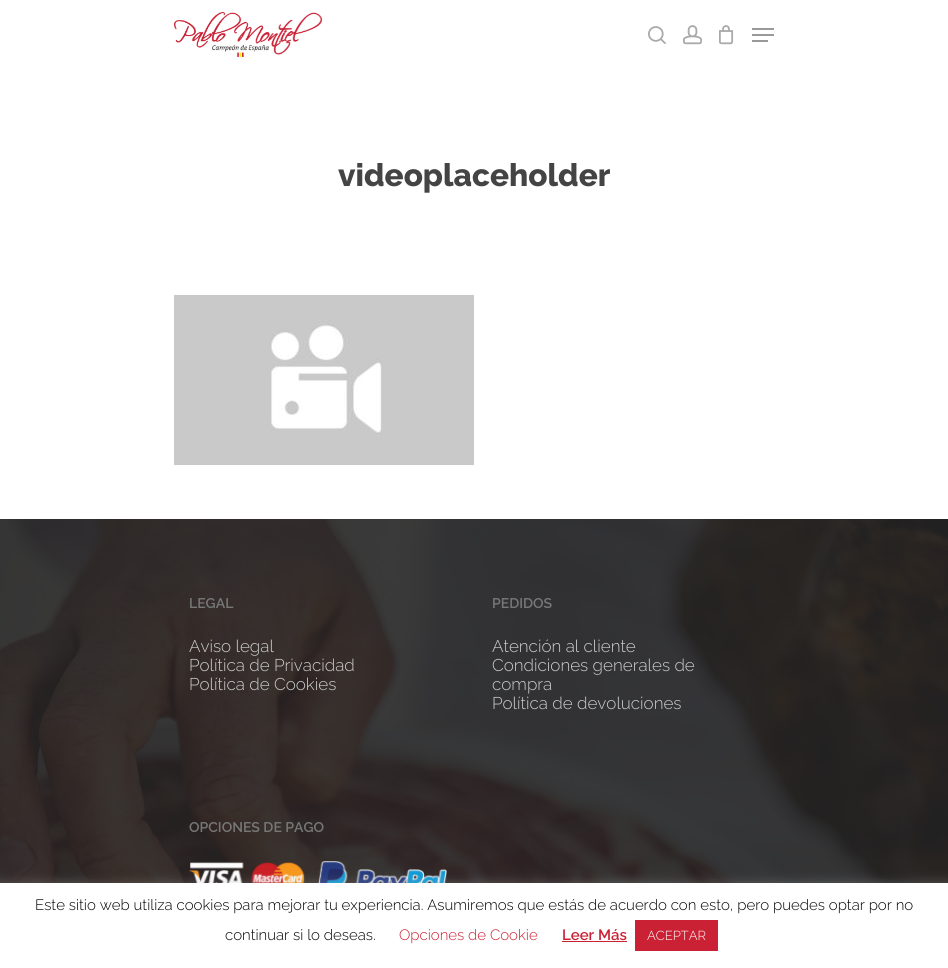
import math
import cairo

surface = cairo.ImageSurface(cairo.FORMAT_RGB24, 948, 968)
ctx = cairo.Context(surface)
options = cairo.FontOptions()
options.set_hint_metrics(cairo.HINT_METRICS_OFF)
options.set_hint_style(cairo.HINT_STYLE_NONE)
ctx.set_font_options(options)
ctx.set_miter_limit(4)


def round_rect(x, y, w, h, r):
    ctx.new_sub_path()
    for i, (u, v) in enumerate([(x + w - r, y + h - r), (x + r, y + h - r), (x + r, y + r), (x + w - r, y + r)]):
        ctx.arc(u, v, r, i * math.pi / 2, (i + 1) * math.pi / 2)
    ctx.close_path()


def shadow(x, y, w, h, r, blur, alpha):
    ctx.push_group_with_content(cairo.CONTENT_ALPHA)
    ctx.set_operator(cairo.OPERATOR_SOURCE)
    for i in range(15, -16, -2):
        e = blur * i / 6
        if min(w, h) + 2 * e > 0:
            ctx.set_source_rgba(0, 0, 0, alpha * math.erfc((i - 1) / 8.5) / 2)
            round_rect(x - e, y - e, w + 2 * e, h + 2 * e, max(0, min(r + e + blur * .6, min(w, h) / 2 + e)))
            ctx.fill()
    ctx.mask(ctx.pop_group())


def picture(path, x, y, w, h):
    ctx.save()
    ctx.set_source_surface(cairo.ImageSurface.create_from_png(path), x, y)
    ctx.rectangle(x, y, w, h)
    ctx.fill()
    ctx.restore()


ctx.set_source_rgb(1, 1, 1)
ctx.paint()
picture("img1.png", 174, 12, 149, 45)
picture("img2.png", 648, 26, 18, 18)
picture("img3.png", 683, 25, 19, 20)
picture("img4.png", 719, 25, 15, 20)
ctx.set_source_rgb(0.6, 0.6, 0.6)
ctx.rectangle(752, 28, 22, 2)
ctx.fill()
ctx.rectangle(752, 40, 16, 2)
ctx.fill()
ctx.rectangle(752, 34, 22, 2)
ctx.fill()
ctx.select_font_face("Raleway ExtraBold")
ctx.set_font_size(31.5)
ctx.set_source_rgb(0.267, 0.267, 0.267)
ctx.move_to(338, 186)
ctx.show_text("videoplaceholder")
picture("img5.png", 174, 295, 300, 170)
picture("img6.png", 0, 519, 948, 364)
ctx.select_font_face("Raleway SemiBold")
ctx.set_font_size(14)
ctx.set_source_rgb(0.467, 0.467, 0.467)
ctx.move_to(189, 608)
ctx.show_text("LEGAL")
ctx.select_font_face("Raleway Light")
ctx.set_font_size(17)
ctx.set_source_rgb(0.8, 0.8, 0.8)
ctx.move_to(189, 652)
ctx.show_text("Aviso legal")
ctx.move_to(189, 671)
ctx.show_text("Política de Privacidad")
ctx.move_to(189, 690)
ctx.show_text("Política de Cookies")
ctx.select_font_face("Raleway SemiBold")
ctx.set_font_size(14)
ctx.set_source_rgb(0.467, 0.467, 0.467)
ctx.move_to(492, 608)
ctx.show_text("PEDIDOS")
ctx.select_font_face("Raleway Light")
ctx.set_font_size(17)
ctx.set_source_rgb(0.8, 0.8, 0.8)
ctx.move_to(492, 652)
ctx.show_text("Atención al cliente")
ctx.move_to(492, 671)
ctx.show_text("Condiciones generales de")
ctx.move_to(492, 690)
ctx.show_text("compra")
ctx.move_to(492, 709)
ctx.show_text("Política de devoluciones")
ctx.select_font_face("Raleway SemiBold")
ctx.set_font_size(14)
ctx.set_source_rgb(0.467, 0.467, 0.467)
ctx.move_to(189, 832)
ctx.show_text("OPCIONES DE PAGO")
picture("img7.png", 189, 861, 258, 22)
ctx.set_source_rgb(0.675, 0.671, 0.671)
shadow(0, 882, 948, 85, 0, 5, 0.3)
ctx.set_source_rgb(1, 1, 1)
ctx.rectangle(0, 883, 948, 85)
ctx.fill()
ctx.select_font_face("Raleway Light")
ctx.set_font_size(15)
ctx.set_source_rgb(0, 0, 0)
ctx.move_to(35, 910)
ctx.show_text("Este sitio web utiliza cookies para mejorar tu experiencia. Asumiremos que estás de acuerdo con esto, pero puedes optar por no")
ctx.move_to(225, 940)
ctx.show_text("continuar si lo deseas.")
ctx.set_source_rgb(0.792, 0.129, 0.204)
ctx.move_to(399, 940)
ctx.show_text("Opciones de Cookie")
ctx.select_font_face("Raleway SemiBold")
ctx.move_to(562, 940)
ctx.show_text("Leer Más")
ctx.rectangle(562, 941, 65, 1)
ctx.fill()
ctx.rectangle(635, 920, 83, 31)
ctx.fill()
ctx.select_font_face("Raleway Light")
ctx.set_font_size(13)
ctx.set_source_rgb(1, 1, 1)
ctx.move_to(647, 940)
ctx.show_text("ACEPTAR")
surface.write_to_png("page.png")
